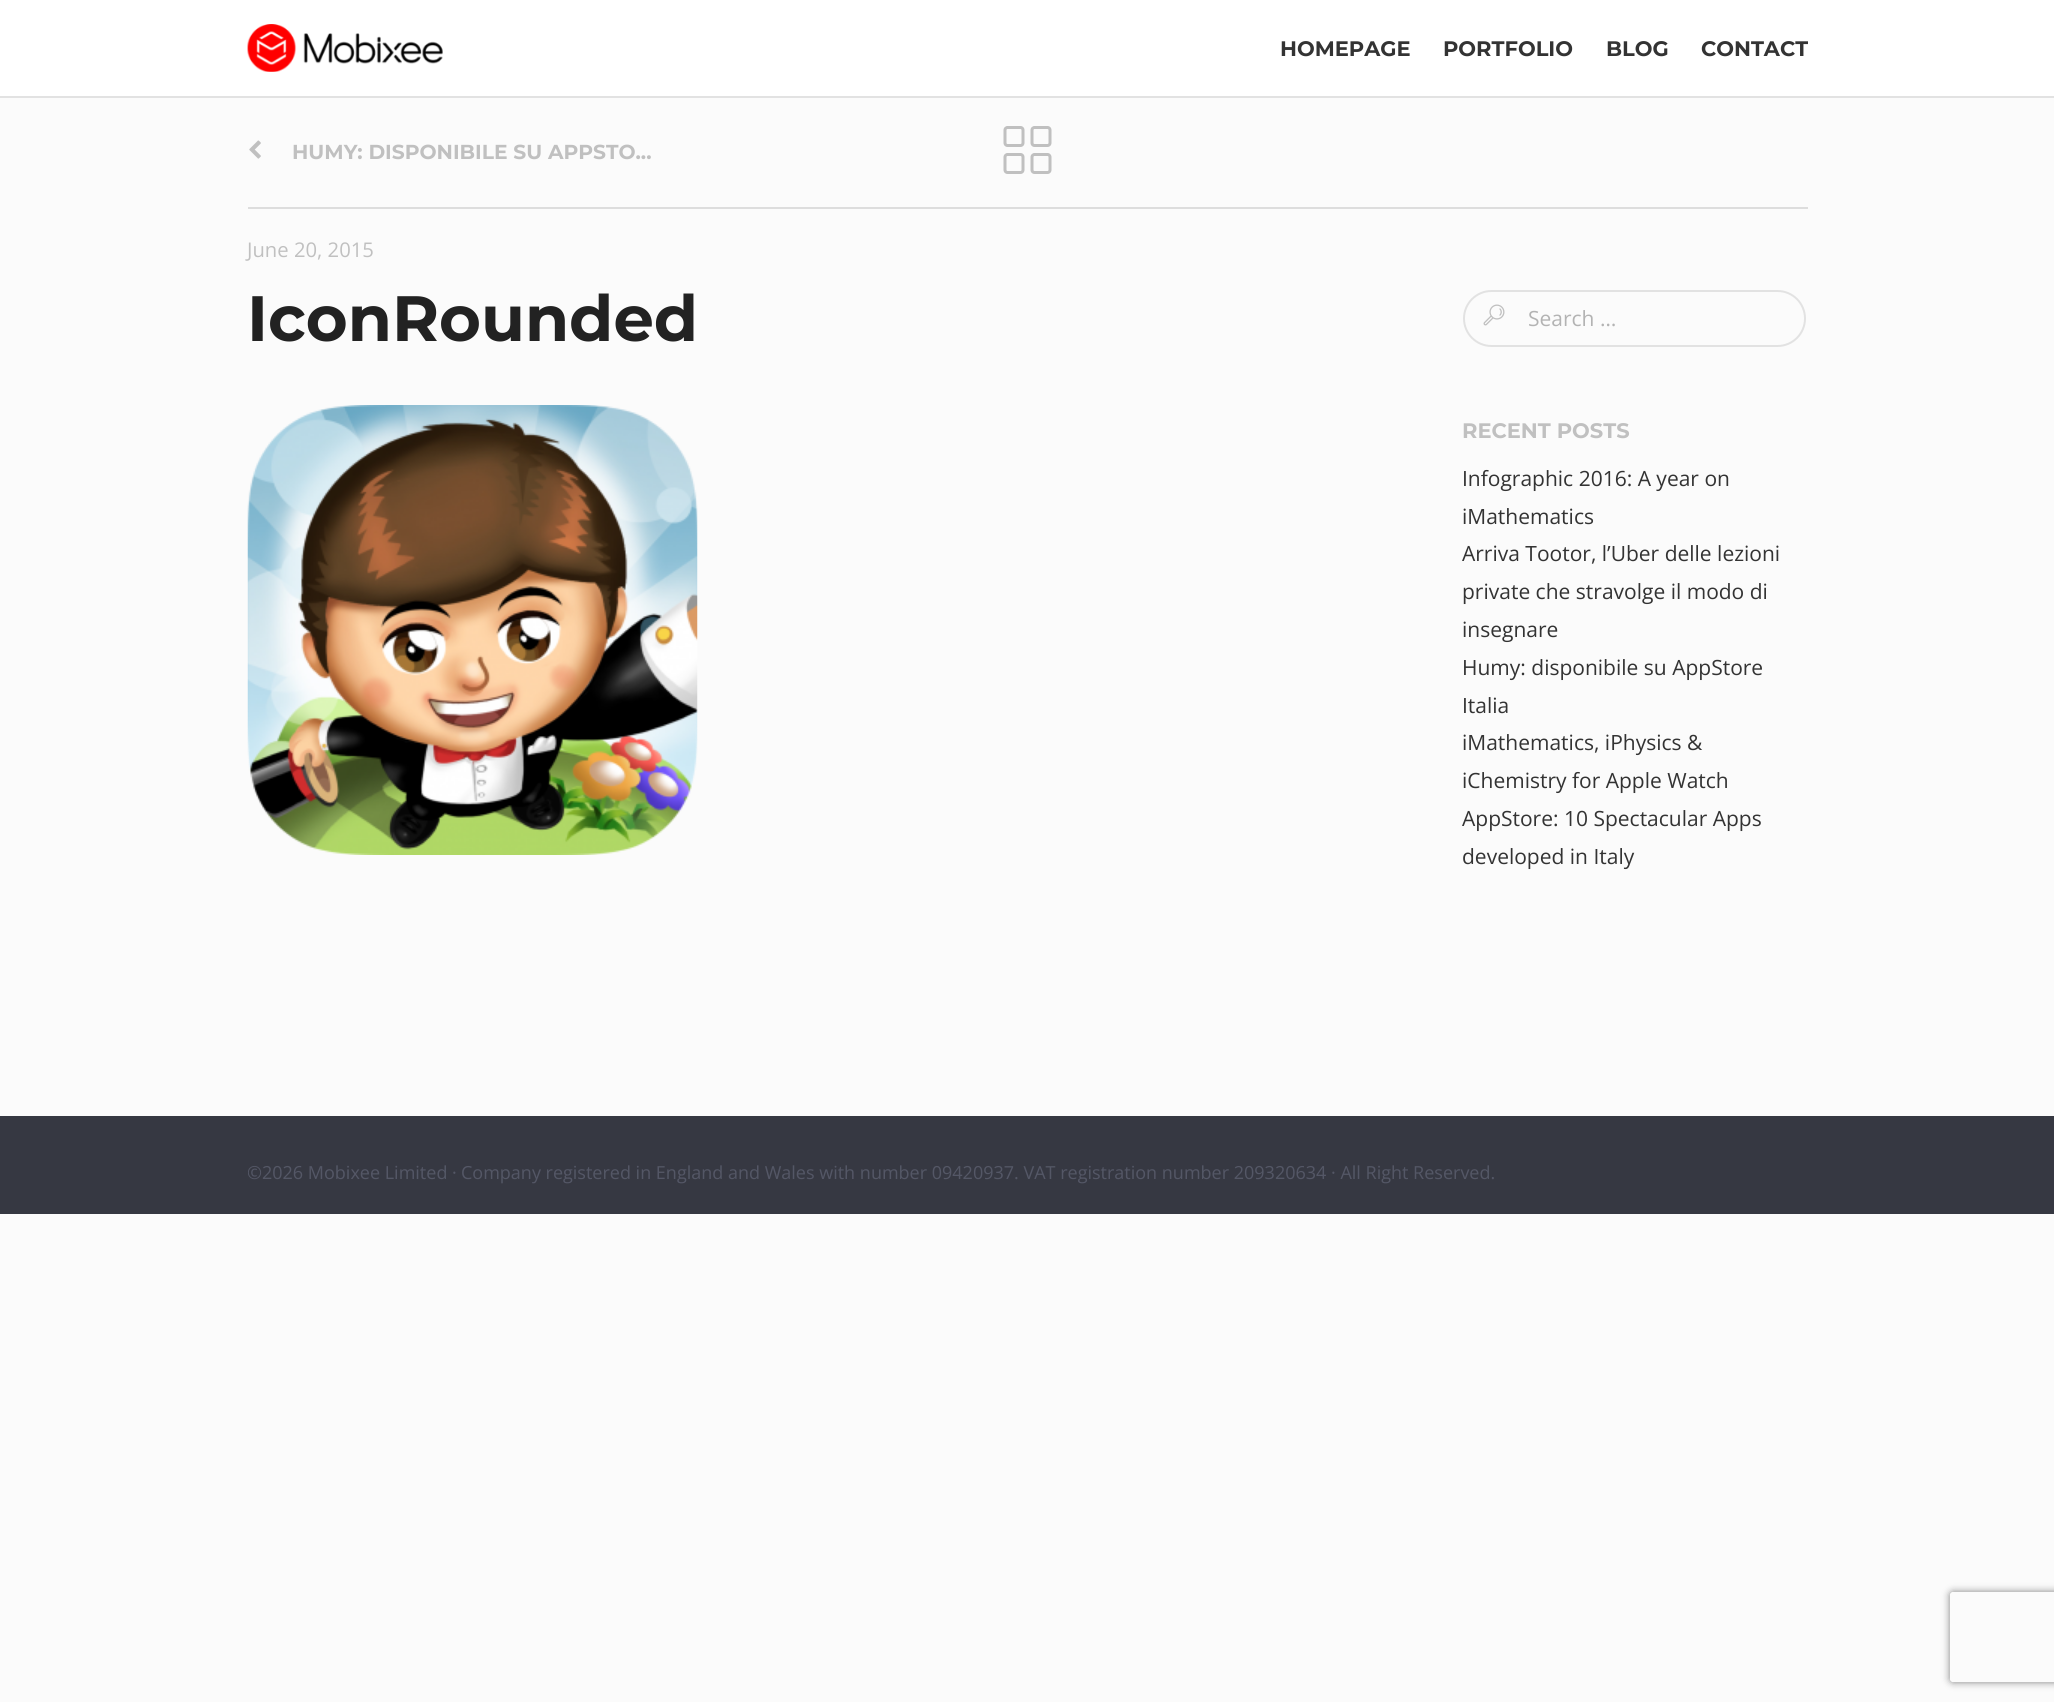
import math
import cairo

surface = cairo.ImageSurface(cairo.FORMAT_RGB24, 2054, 1702)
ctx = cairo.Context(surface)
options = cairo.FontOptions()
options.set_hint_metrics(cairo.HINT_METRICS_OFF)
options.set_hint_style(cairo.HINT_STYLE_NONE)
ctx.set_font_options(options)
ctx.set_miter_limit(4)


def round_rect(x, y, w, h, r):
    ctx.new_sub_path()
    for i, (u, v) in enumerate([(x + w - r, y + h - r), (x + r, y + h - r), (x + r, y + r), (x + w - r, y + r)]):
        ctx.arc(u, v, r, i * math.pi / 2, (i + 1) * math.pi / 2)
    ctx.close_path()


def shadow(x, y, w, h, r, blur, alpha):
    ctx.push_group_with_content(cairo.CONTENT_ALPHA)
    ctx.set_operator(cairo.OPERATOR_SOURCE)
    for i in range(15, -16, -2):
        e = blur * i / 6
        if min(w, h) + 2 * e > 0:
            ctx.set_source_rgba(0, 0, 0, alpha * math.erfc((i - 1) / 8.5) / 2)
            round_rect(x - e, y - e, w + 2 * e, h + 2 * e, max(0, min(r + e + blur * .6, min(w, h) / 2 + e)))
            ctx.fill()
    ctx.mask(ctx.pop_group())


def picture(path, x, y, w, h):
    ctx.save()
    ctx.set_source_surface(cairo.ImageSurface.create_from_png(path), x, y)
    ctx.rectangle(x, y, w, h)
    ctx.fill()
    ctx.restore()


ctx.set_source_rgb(0.984, 0.984, 0.984)
ctx.paint()
ctx.set_source_rgb(0.886, 0.886, 0.886)
ctx.rectangle(0, 96, 2054, 2)
ctx.fill()
ctx.set_source_rgb(1, 1, 1)
ctx.rectangle(0, 0, 2054, 96)
ctx.fill()
picture("img1.png", 247, 24, 196, 48)
ctx.select_font_face("Montserrat", cairo.FONT_SLANT_NORMAL, cairo.FONT_WEIGHT_BOLD)
ctx.set_font_size(21)
ctx.set_source_rgb(0.2, 0.2, 0.2)
ctx.move_to(1280, 56)
ctx.show_text("HOMEPAGE")
ctx.move_to(1443, 56)
ctx.show_text("PORTFOLIO")
ctx.move_to(1606, 56)
ctx.show_text("BLOG")
ctx.move_to(1701, 56)
ctx.show_text("CONTACT")
ctx.set_source_rgb(0.867, 0.867, 0.867)
ctx.rectangle(248, 207, 1560, 2)
ctx.fill()
picture("img2.png", 249, 140, 12, 19)
ctx.set_font_size(20.25)
ctx.set_source_rgb(0.753, 0.753, 0.753)
ctx.move_to(292, 159)
ctx.show_text("HUMY: DISPONIBILE SU APPSTO...")
picture("img3.png", 1003, 126, 49, 48)
ctx.select_font_face("Open Sans")
ctx.move_to(247, 257)
ctx.show_text("June 20, 2015")
ctx.select_font_face("Montserrat", cairo.FONT_SLANT_NORMAL, cairo.FONT_WEIGHT_BOLD)
ctx.set_font_size(64)
ctx.set_source_rgb(0.133, 0.133, 0.133)
ctx.move_to(247, 341)
ctx.show_text("IconRounded")
picture("img4.png", 247, 405, 451, 450)
round_rect(1464, 291, 341, 55, 27.5)
ctx.set_source_rgb(0.886, 0.886, 0.886)
ctx.stroke()
picture("img5.png", 1483, 304, 22, 22)
ctx.select_font_face("Open Sans")
ctx.set_font_size(21)
ctx.set_source_rgb(0.702, 0.702, 0.702)
ctx.move_to(1528, 326)
ctx.show_text("Search …")
ctx.select_font_face("Montserrat", cairo.FONT_SLANT_NORMAL, cairo.FONT_WEIGHT_BOLD)
ctx.set_source_rgb(0.753, 0.753, 0.753)
ctx.move_to(1462, 438)
ctx.show_text("RECENT POSTS")
ctx.select_font_face("Open Sans")
ctx.set_source_rgb(0.2, 0.2, 0.2)
ctx.move_to(1462, 486)
ctx.show_text("Infographic 2016: A year on")
ctx.move_to(1462, 524)
ctx.show_text("iMathematics")
ctx.move_to(1462, 561)
ctx.show_text("Arriva Tootor, l’Uber delle lezioni")
ctx.move_to(1462, 599)
ctx.show_text("private che stravolge il modo di")
ctx.move_to(1462, 637)
ctx.show_text("insegnare")
ctx.move_to(1462, 675)
ctx.show_text("Humy: disponibile su AppStore")
ctx.move_to(1462, 713)
ctx.show_text("Italia")
ctx.move_to(1462, 750)
ctx.show_text("iMathematics, iPhysics &")
ctx.move_to(1462, 788)
ctx.show_text("iChemistry for Apple Watch")
ctx.move_to(1462, 826)
ctx.show_text("AppStore: 10 Spectacular Apps")
ctx.move_to(1462, 864)
ctx.show_text("developed in Italy")
ctx.set_source_rgb(0.212, 0.22, 0.259)
ctx.rectangle(0, 1116, 2054, 98)
ctx.fill()
ctx.save()
ctx.rectangle(248, 1145, 1560, 69)
ctx.clip()
ctx.set_font_size(18)
ctx.set_source_rgb(0.329, 0.341, 0.4)
ctx.move_to(247, 1179)
ctx.show_text("©2026 Mobixee Limited ·")
ctx.restore()
ctx.set_font_size(18)
ctx.set_source_rgb(0.329, 0.341, 0.4)
ctx.move_to(461, 1179)
ctx.show_text("Company registered in England and Wales with number 09420937. VAT registration number 209320634 · All Right Reserved.")
ctx.save()
ctx.set_fill_rule(cairo.FILL_RULE_EVEN_ODD)
ctx.new_path()
ctx.move_to(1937, 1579)
ctx.line_to(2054, 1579)
ctx.line_to(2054, 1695)
ctx.line_to(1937, 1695)
ctx.close_path()
ctx.move_to(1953, 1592)
ctx.line_to(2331, 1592)
ctx.curve_to(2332.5, 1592, 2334, 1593.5, 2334, 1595)
ctx.line_to(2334, 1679)
ctx.curve_to(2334, 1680.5, 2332.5, 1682, 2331, 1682)
ctx.line_to(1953, 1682)
ctx.curve_to(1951.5, 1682, 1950, 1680.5, 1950, 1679)
ctx.line_to(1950, 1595)
ctx.curve_to(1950, 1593.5, 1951.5, 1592, 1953, 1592)
ctx.close_path()
ctx.clip()
ctx.set_source_rgb(0.502, 0.502, 0.502)
shadow(1950, 1592, 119, 90, 3, 4, 1)
ctx.restore()
surface.write_to_png("page.png")
